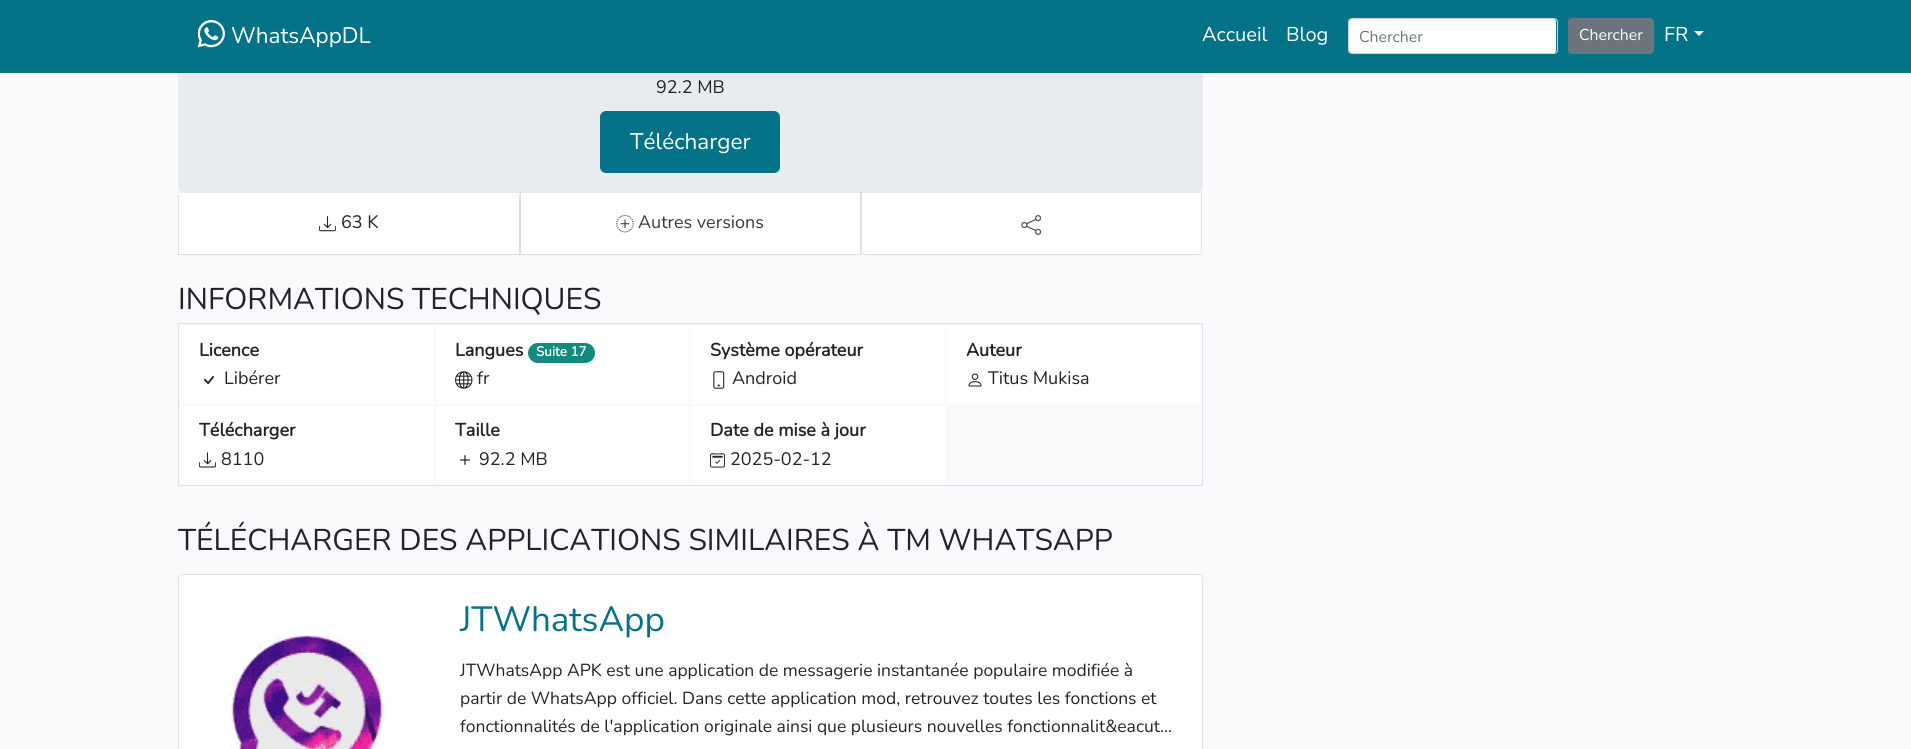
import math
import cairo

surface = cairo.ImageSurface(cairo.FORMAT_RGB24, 1911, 749)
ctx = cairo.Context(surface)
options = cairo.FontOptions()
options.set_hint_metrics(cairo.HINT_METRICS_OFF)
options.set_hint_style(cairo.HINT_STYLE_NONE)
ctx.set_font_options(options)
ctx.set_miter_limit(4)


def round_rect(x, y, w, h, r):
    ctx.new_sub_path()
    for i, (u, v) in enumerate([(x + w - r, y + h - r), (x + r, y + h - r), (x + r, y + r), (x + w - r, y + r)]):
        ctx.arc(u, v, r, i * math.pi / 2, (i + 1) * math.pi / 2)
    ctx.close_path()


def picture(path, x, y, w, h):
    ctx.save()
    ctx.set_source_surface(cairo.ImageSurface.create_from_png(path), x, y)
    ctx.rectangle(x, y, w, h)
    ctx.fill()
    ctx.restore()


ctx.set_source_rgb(0.973, 0.98, 0.988)
ctx.paint()
ctx.set_source_rgb(0.914, 0.925, 0.937)
round_rect(178, -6, 1025, 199, 6)
ctx.fill()
ctx.set_source_rgb(0.016, 0.451, 0.529)
ctx.rectangle(0, 0, 1911, 73)
ctx.fill()
picture("img1.png", 198, 20, 27, 28)
ctx.select_font_face("Nunito ExtraLight")
ctx.set_font_size(22.5)
ctx.set_source_rgb(1, 1, 1)
ctx.move_to(231, 43)
ctx.show_text("WhatsAppDL")
ctx.set_font_size(20)
ctx.move_to(1202, 41)
ctx.show_text("Accueil")
ctx.move_to(1286, 41)
ctx.show_text("Blog")
round_rect(1349, 19, 207, 34, 2.5)
ctx.fill()
round_rect(1348.5, 18.5, 209, 35, 3.5)
ctx.set_source_rgb(0.808, 0.831, 0.855)
ctx.set_line_width(1)
ctx.stroke()
ctx.set_font_size(15.75)
ctx.set_source_rgb(0.424, 0.459, 0.49)
ctx.move_to(1359, 42)
ctx.show_text("Chercher")
round_rect(1568.5, 18.5, 85, 35, 3.5)
ctx.fill_preserve()
ctx.stroke()
ctx.set_source_rgb(1, 1, 1)
ctx.move_to(1579, 40)
ctx.show_text("Chercher")
ctx.set_font_size(20)
ctx.move_to(1664, 41)
ctx.show_text("FR")
ctx.new_path()
ctx.move_to(1694, 31)
ctx.line_to(1704, 31)
ctx.line_to(1699, 36)
ctx.close_path()
ctx.fill()
ctx.set_font_size(18)
ctx.set_source_rgb(0.129, 0.145, 0.161)
ctx.move_to(656, 93)
ctx.show_text("92.2 MB")
ctx.set_source_rgb(0.016, 0.451, 0.529)
round_rect(600, 111, 180, 62, 6)
ctx.fill()
ctx.set_font_size(22.5)
ctx.set_source_rgb(1, 1, 1)
ctx.move_to(630, 149)
ctx.show_text("Télécharger")
ctx.new_path()
ctx.move_to(183, 193)
ctx.line_to(515, 193)
ctx.curve_to(518, 193, 520, 195, 520, 198)
ctx.line_to(520, 255)
ctx.line_to(178, 255)
ctx.line_to(178, 198)
ctx.curve_to(178, 195, 180, 193, 183, 193)
ctx.close_path()
ctx.fill()
ctx.set_source_rgba(0, 0, 0, 0.12)
ctx.rectangle(519, 195, 1, 60)
ctx.fill()
ctx.rectangle(178, 254, 342, 1)
ctx.fill()
ctx.rectangle(178, 195, 1, 60)
ctx.fill()
picture("img2.png", 319, 216, 17, 16)
ctx.set_font_size(18)
ctx.set_source_rgb(0.129, 0.145, 0.161)
ctx.move_to(341, 228)
ctx.show_text("63 K")
ctx.set_source_rgb(1, 1, 1)
ctx.rectangle(520, 193, 341, 62)
ctx.fill()
ctx.set_source_rgba(0, 0, 0, 0.12)
ctx.new_path()
ctx.move_to(861, 192)
ctx.line_to(861, 255)
ctx.line_to(860, 254)
ctx.line_to(860, 192)
ctx.close_path()
ctx.fill()
ctx.new_path()
ctx.move_to(861, 255)
ctx.line_to(520, 255)
ctx.line_to(521, 254)
ctx.line_to(860, 254)
ctx.close_path()
ctx.fill()
ctx.new_path()
ctx.move_to(520, 255)
ctx.line_to(520, 192)
ctx.line_to(521, 192)
ctx.line_to(521, 254)
ctx.close_path()
ctx.fill()
picture("img3.png", 616, 215, 18, 18)
ctx.set_source_rgb(0.204, 0.227, 0.251)
ctx.move_to(638, 228)
ctx.show_text("Autres versions")
ctx.set_source_rgb(1, 1, 1)
ctx.new_path()
ctx.move_to(861, 193)
ctx.line_to(1203, 193)
ctx.line_to(1203, 250)
ctx.curve_to(1203, 253, 1201, 255, 1198, 255)
ctx.line_to(866, 255)
ctx.curve_to(863, 255, 861, 253, 861, 250)
ctx.close_path()
ctx.fill()
ctx.set_source_rgba(0, 0, 0, 0.12)
ctx.set_fill_rule(cairo.FILL_RULE_EVEN_ODD)
ctx.new_path()
ctx.move_to(861, 192)
ctx.line_to(1202, 192)
ctx.line_to(1202, 250)
ctx.curve_to(1202, 253, 1200, 255, 1198, 255)
ctx.line_to(866, 255)
ctx.curve_to(863, 255, 861, 253, 861, 250)
ctx.close_path()
ctx.move_to(862, 192)
ctx.line_to(1201, 192)
ctx.line_to(1201, 250)
ctx.curve_to(1201, 252, 1200, 254, 1198, 254)
ctx.line_to(866, 254)
ctx.curve_to(864, 254, 862, 252, 862, 250)
ctx.close_path()
ctx.fill()
picture("img4.png", 1021, 215, 20, 20)
ctx.set_font_size(30)
ctx.set_source_rgb(0.129, 0.145, 0.161)
ctx.move_to(178, 309)
ctx.show_text("INFORMATIONS TECHNIQUES")
ctx.rectangle(178.5, 323.5, 1024, 162)
ctx.set_source_rgb(0.871, 0.886, 0.902)
ctx.stroke()
ctx.set_source_rgb(1, 1, 1)
ctx.rectangle(180, 325, 254, 79)
ctx.fill()
ctx.select_font_face("Nunito", cairo.FONT_SLANT_NORMAL, cairo.FONT_WEIGHT_BOLD)
ctx.set_font_size(18)
ctx.set_source_rgb(0.129, 0.145, 0.161)
ctx.move_to(199, 356)
ctx.show_text("Licence")
picture("img5.png", 203, 376, 11, 8)
ctx.select_font_face("Nunito ExtraLight")
ctx.move_to(224, 384)
ctx.show_text("Libérer")
ctx.set_source_rgb(1, 1, 1)
ctx.rectangle(436, 325, 253, 79)
ctx.fill()
ctx.select_font_face("Nunito", cairo.FONT_SLANT_NORMAL, cairo.FONT_WEIGHT_BOLD)
ctx.set_source_rgb(0.129, 0.145, 0.161)
ctx.move_to(455, 356)
ctx.show_text("Langues")
ctx.set_source_rgb(0.078, 0.541, 0.494)
round_rect(528, 343, 67, 20, 10)
ctx.fill()
ctx.set_font_size(13.5)
ctx.set_source_rgb(1, 1, 1)
ctx.move_to(536, 356)
ctx.show_text("Suite 17")
picture("img6.png", 455, 371, 18, 18)
ctx.select_font_face("Nunito ExtraLight")
ctx.set_font_size(18)
ctx.set_source_rgb(0.129, 0.145, 0.161)
ctx.move_to(477, 384)
ctx.show_text("fr")
ctx.set_source_rgb(1, 1, 1)
ctx.rectangle(691, 325, 254, 79)
ctx.fill()
ctx.select_font_face("Nunito", cairo.FONT_SLANT_NORMAL, cairo.FONT_WEIGHT_BOLD)
ctx.set_source_rgb(0.129, 0.145, 0.161)
ctx.move_to(710, 356)
ctx.show_text("Système opérateur")
picture("img7.png", 713, 371, 12, 18)
ctx.select_font_face("Nunito ExtraLight")
ctx.move_to(732, 384)
ctx.show_text("Android")
ctx.set_source_rgb(1, 1, 1)
ctx.rectangle(947, 325, 253, 79)
ctx.fill()
ctx.select_font_face("Nunito", cairo.FONT_SLANT_NORMAL, cairo.FONT_WEIGHT_BOLD)
ctx.set_source_rgb(0.129, 0.145, 0.161)
ctx.move_to(966, 356)
ctx.show_text("Auteur")
picture("img8.png", 968, 373, 14, 14)
ctx.select_font_face("Nunito ExtraLight")
ctx.move_to(988, 384)
ctx.show_text("Titus Mukisa")
ctx.set_source_rgb(1, 1, 1)
ctx.rectangle(180, 406, 254, 78)
ctx.fill()
ctx.select_font_face("Nunito", cairo.FONT_SLANT_NORMAL, cairo.FONT_WEIGHT_BOLD)
ctx.set_source_rgb(0.129, 0.145, 0.161)
ctx.move_to(199, 436)
ctx.show_text("Télécharger")
picture("img9.png", 199, 452, 17, 16)
ctx.select_font_face("Nunito ExtraLight")
ctx.move_to(221, 465)
ctx.show_text("8110")
ctx.set_source_rgb(1, 1, 1)
ctx.rectangle(436, 406, 253, 78)
ctx.fill()
ctx.select_font_face("Nunito", cairo.FONT_SLANT_NORMAL, cairo.FONT_WEIGHT_BOLD)
ctx.set_source_rgb(0.129, 0.145, 0.161)
ctx.move_to(455, 436)
ctx.show_text("Taille")
picture("img10.png", 460, 455, 10, 10)
ctx.select_font_face("Nunito ExtraLight")
ctx.move_to(479, 465)
ctx.show_text("92.2 MB")
ctx.set_source_rgb(1, 1, 1)
ctx.rectangle(691, 406, 254, 78)
ctx.fill()
ctx.select_font_face("Nunito", cairo.FONT_SLANT_NORMAL, cairo.FONT_WEIGHT_BOLD)
ctx.set_source_rgb(0.129, 0.145, 0.161)
ctx.move_to(710, 436)
ctx.show_text("Date de mise à jour")
picture("img11.png", 710, 453, 15, 15)
ctx.select_font_face("Nunito ExtraLight")
ctx.move_to(730, 465)
ctx.show_text("2025-02-12")
ctx.set_font_size(30)
ctx.move_to(178, 550)
ctx.show_text("TÉLÉCHARGER DES APPLICATIONS SIMILAIRES À TM WHATSAPP")
ctx.set_source_rgb(1, 1, 1)
round_rect(178, 574, 1025, 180, 5)
ctx.fill()
round_rect(178.5, 574.5, 1024, 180, 4.5)
ctx.set_source_rgba(0, 0, 0, 0.12)
ctx.stroke()
picture("img12.png", 230, 635, 153, 114)
ctx.set_font_size(35)
ctx.set_source_rgb(0.016, 0.451, 0.529)
ctx.move_to(460, 631)
ctx.show_text("JTWhatsApp")
ctx.set_font_size(17.5)
ctx.set_source_rgb(0.129, 0.145, 0.161)
ctx.move_to(460, 676)
ctx.show_text("JTWhatsApp APK est une application de messagerie instantanée populaire modifiée à")
ctx.move_to(460, 704)
ctx.show_text("partir de WhatsApp officiel. Dans cette application mod, retrouvez toutes les fonctions et")
ctx.move_to(460, 732)
ctx.show_text("fonctionnalités de l'application originale ainsi que plusieurs nouvelles fonctionnalit&eacut...")
surface.write_to_png("page.png")
